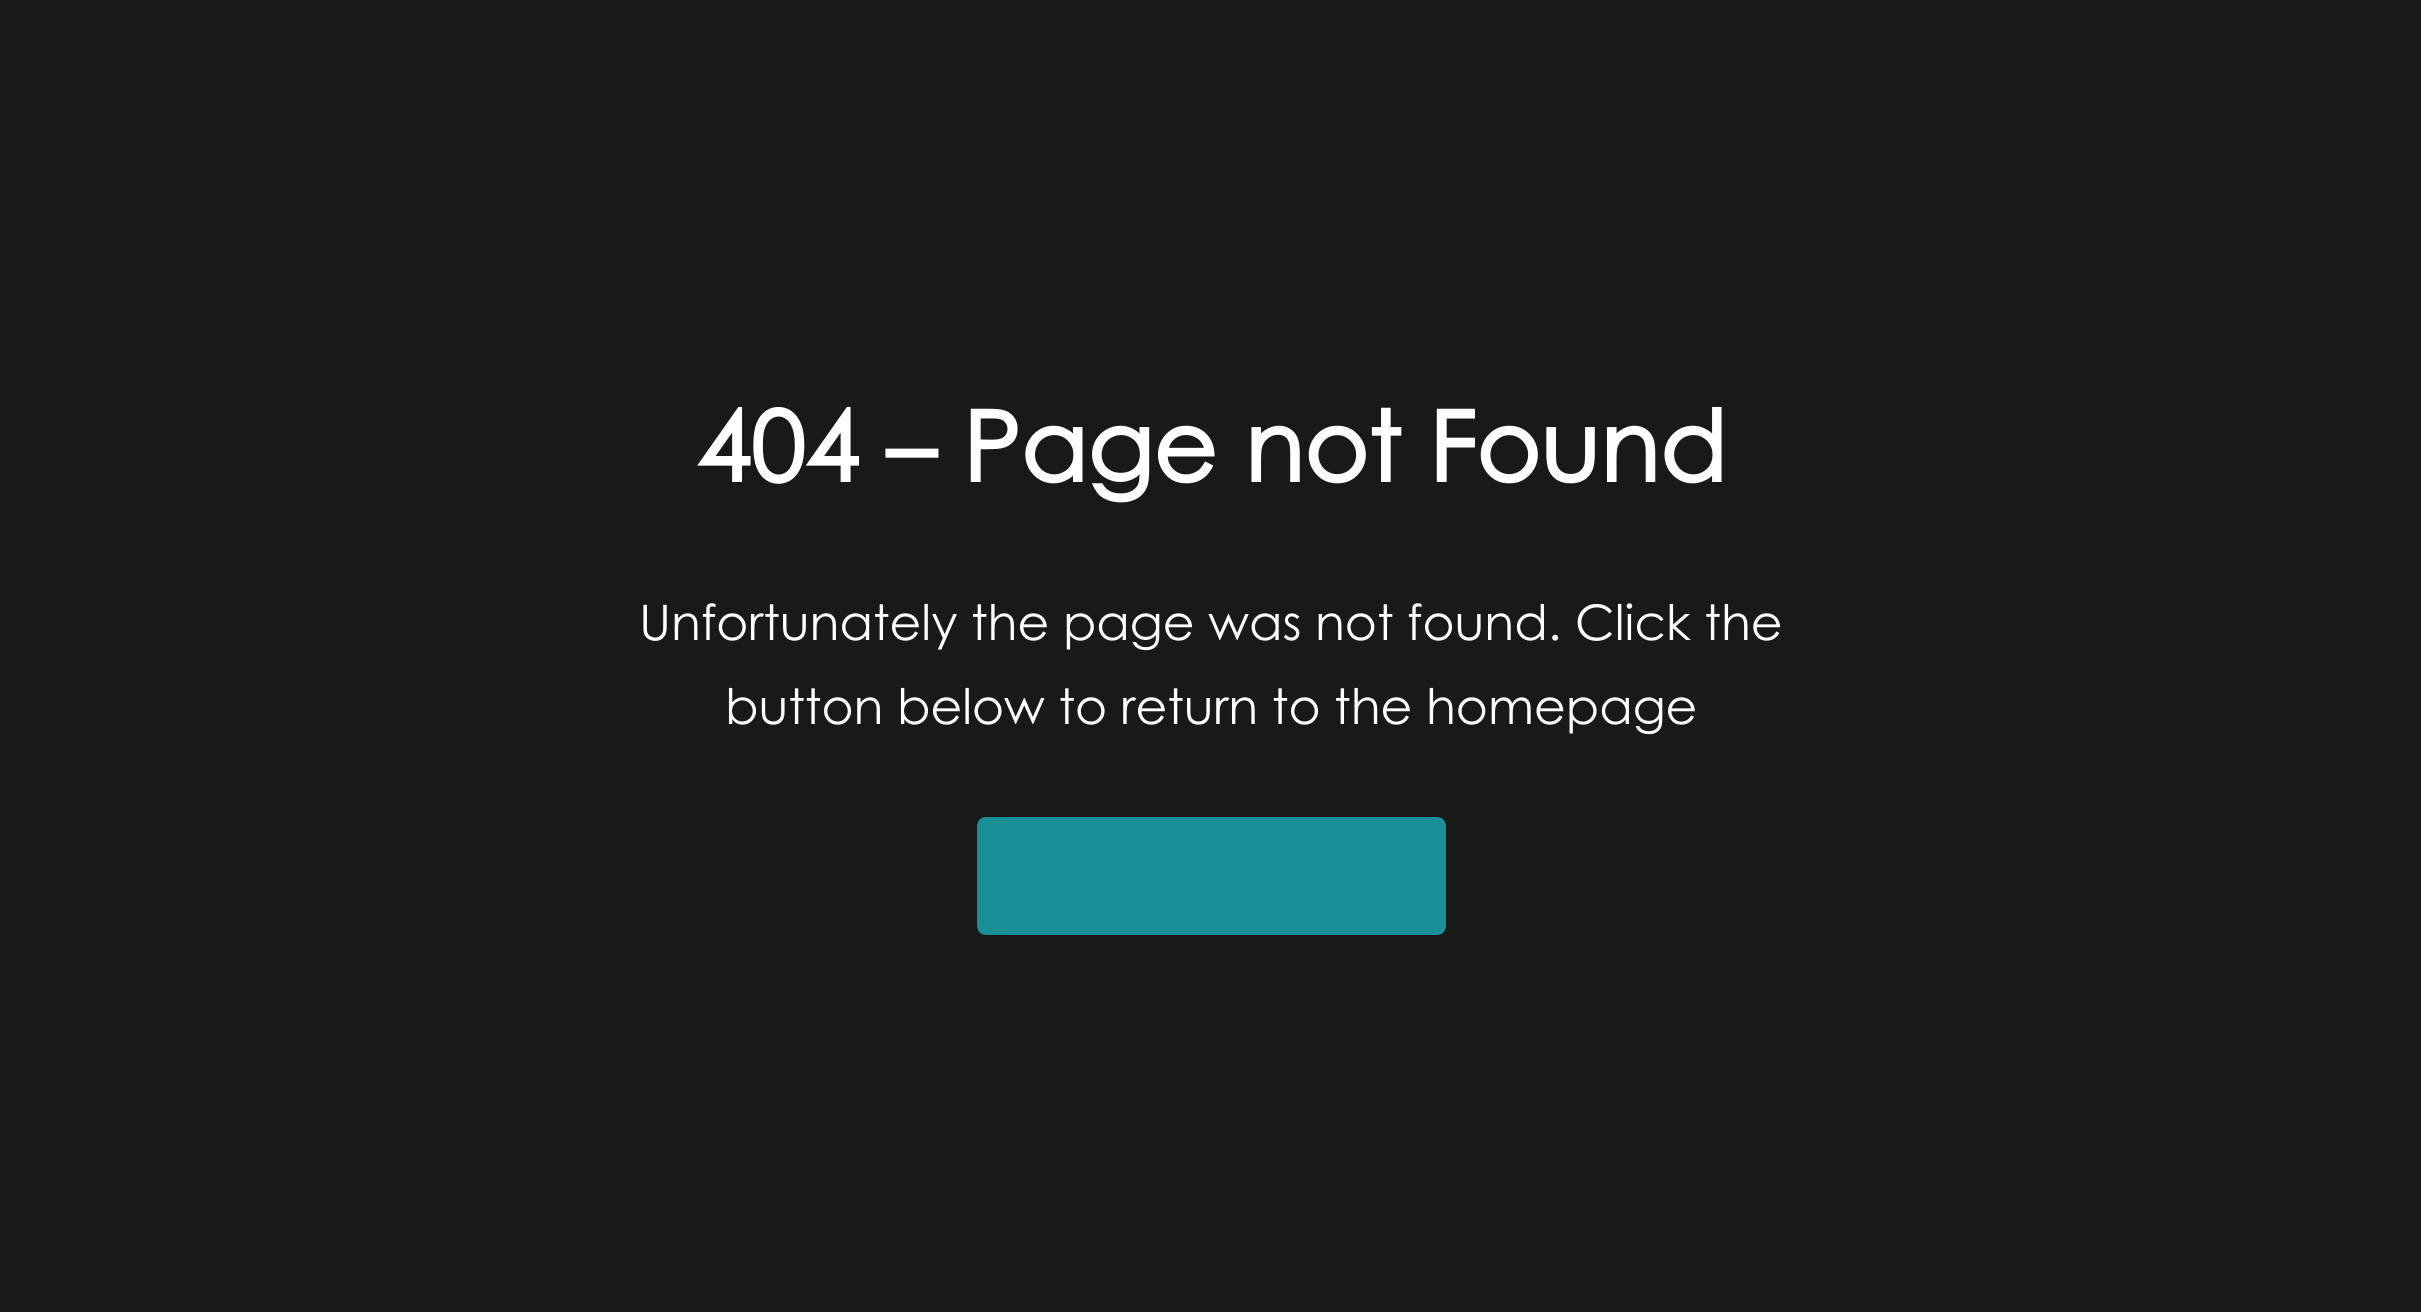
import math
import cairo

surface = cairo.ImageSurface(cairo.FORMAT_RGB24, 2421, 1312)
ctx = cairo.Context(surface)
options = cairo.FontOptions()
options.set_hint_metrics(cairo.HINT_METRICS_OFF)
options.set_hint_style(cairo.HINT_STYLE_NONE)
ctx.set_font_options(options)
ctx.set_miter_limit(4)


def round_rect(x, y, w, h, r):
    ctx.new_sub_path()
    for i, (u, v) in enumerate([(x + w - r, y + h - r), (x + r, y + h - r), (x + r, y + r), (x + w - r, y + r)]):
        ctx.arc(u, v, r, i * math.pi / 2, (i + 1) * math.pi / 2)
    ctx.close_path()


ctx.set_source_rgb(0.102, 0.098, 0.098)
ctx.paint()
ctx.select_font_face("Century Gothic", cairo.FONT_SLANT_NORMAL, cairo.FONT_WEIGHT_BOLD)
ctx.set_font_size(98)
ctx.set_source_rgb(1, 1, 1)
ctx.move_to(696, 482)
ctx.show_text("404 – Page not Found")
ctx.select_font_face("Century Gothic")
ctx.set_font_size(49)
ctx.move_to(639, 640)
ctx.show_text("Unfortunately the page was not found. Click the")
ctx.move_to(725, 724)
ctx.show_text("button below to return to the homepage")
ctx.set_source_rgb(0.098, 0.561, 0.596)
round_rect(979, 819, 465, 114, 7)
ctx.fill_preserve()
ctx.set_line_width(4)
ctx.stroke()
surface.write_to_png("page.png")
